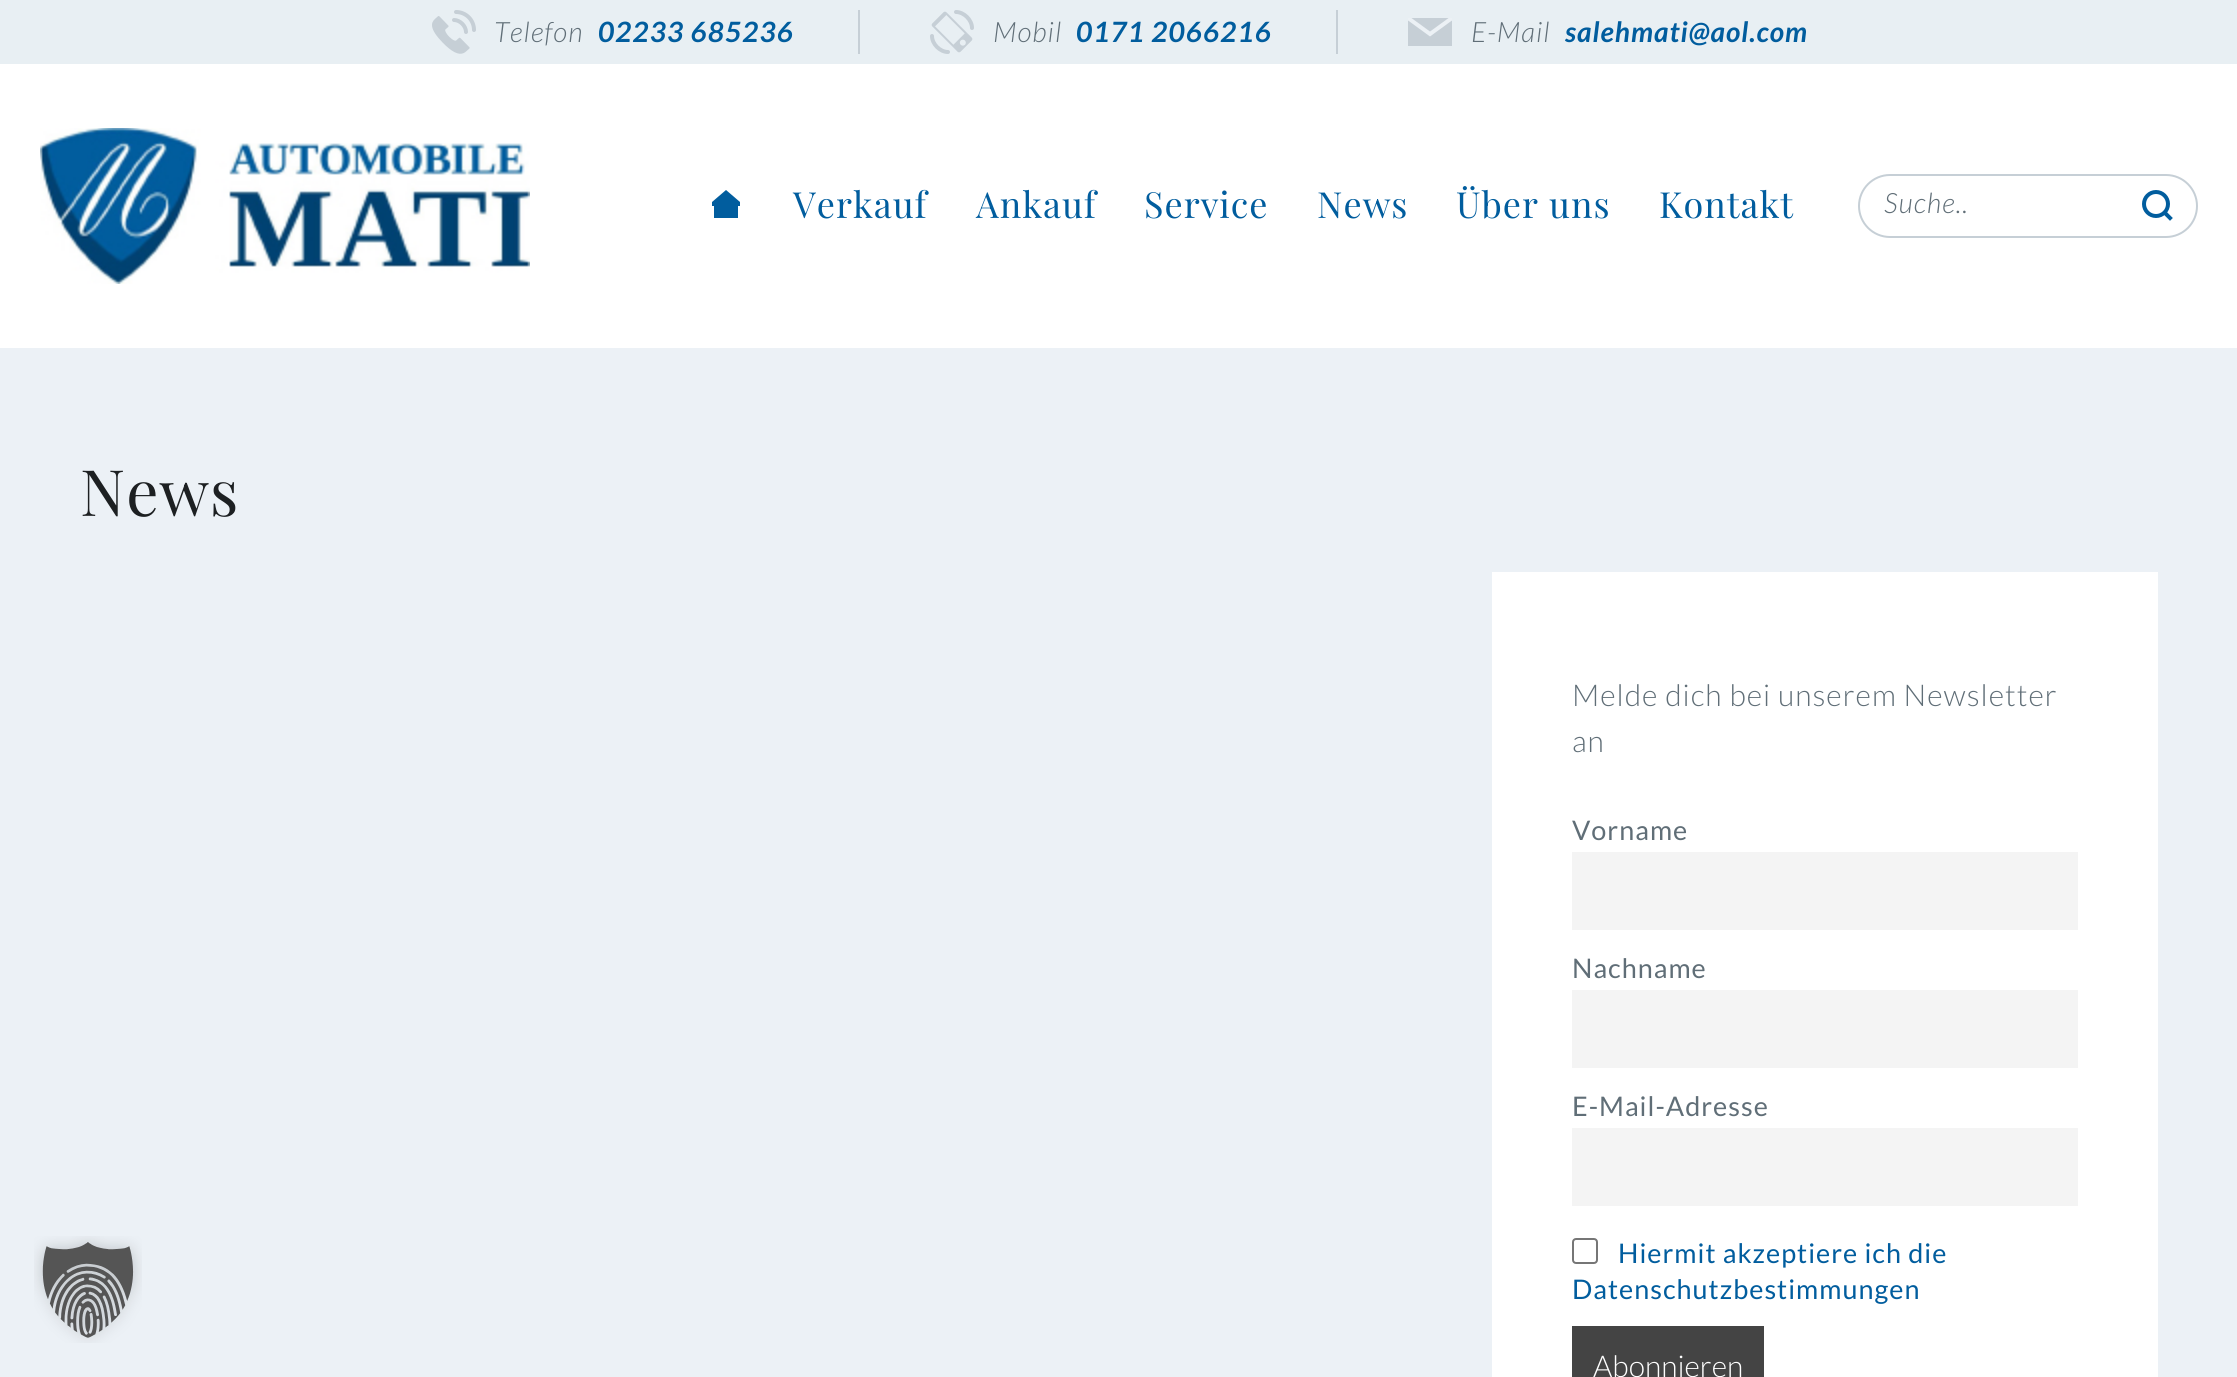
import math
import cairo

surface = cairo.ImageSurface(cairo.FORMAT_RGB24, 2237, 1377)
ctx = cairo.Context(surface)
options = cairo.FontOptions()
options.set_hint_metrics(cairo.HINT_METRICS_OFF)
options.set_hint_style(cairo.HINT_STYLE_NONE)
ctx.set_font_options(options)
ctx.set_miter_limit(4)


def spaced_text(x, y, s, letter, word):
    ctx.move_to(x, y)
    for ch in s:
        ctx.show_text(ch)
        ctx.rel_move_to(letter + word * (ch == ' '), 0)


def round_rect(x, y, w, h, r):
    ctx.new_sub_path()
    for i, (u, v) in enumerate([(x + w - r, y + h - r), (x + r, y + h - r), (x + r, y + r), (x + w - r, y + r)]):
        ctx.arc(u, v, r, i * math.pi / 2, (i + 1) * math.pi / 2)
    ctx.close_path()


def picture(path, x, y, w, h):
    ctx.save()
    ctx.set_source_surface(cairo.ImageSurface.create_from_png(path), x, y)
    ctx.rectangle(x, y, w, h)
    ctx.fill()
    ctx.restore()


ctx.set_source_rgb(0.925, 0.945, 0.961)
ctx.paint()
ctx.set_source_rgb(0.91, 0.937, 0.953)
ctx.rectangle(0, 0, 2237, 64)
ctx.fill()
picture("img1.png", 432, 10, 44, 44)
ctx.select_font_face("Lato Light", cairo.FONT_SLANT_ITALIC)
ctx.set_font_size(28)
ctx.set_source_rgb(0.376, 0.431, 0.467)
spaced_text(494, 42, "Telefon", 1, 0)
ctx.select_font_face("Lato", cairo.FONT_SLANT_ITALIC, cairo.FONT_WEIGHT_BOLD)
ctx.set_source_rgb(0.004, 0.365, 0.62)
spaced_text(598, 42, "02233 685236", 1, 0)
ctx.set_source_rgb(0.776, 0.812, 0.839)
ctx.rectangle(858, 10, 2, 44)
ctx.fill()
picture("img2.png", 930, 10, 44, 44)
ctx.select_font_face("Lato Light", cairo.FONT_SLANT_ITALIC)
ctx.set_source_rgb(0.376, 0.431, 0.467)
spaced_text(993, 42, "Mobil", 1, 0)
ctx.select_font_face("Lato", cairo.FONT_SLANT_ITALIC, cairo.FONT_WEIGHT_BOLD)
ctx.set_source_rgb(0.004, 0.365, 0.62)
spaced_text(1076, 42, "0171 2066216", 1, 0)
ctx.set_source_rgb(0.776, 0.812, 0.839)
ctx.rectangle(1336, 10, 2, 44)
ctx.fill()
picture("img3.png", 1408, 18, 44, 28)
ctx.select_font_face("Lato Light", cairo.FONT_SLANT_ITALIC)
ctx.set_source_rgb(0.376, 0.431, 0.467)
spaced_text(1471, 42, "E-Mail", 1, 0)
ctx.select_font_face("Lato", cairo.FONT_SLANT_ITALIC, cairo.FONT_WEIGHT_BOLD)
ctx.set_source_rgb(0.004, 0.365, 0.62)
spaced_text(1565, 42, "salehmati@aol.com", 1, 0)
ctx.set_source_rgb(1, 1, 1)
ctx.rectangle(0, 64, 2237, 284)
ctx.fill()
picture("img4.png", 40, 128, 490, 156)
ctx.set_source_rgb(0.004, 0.365, 0.62)
ctx.set_fill_rule(cairo.FILL_RULE_EVEN_ODD)
ctx.new_path()
ctx.move_to(714, 206)
ctx.line_to(712, 206)
ctx.line_to(712, 202)
ctx.line_to(726, 190)
ctx.line_to(740, 202)
ctx.line_to(740, 206)
ctx.line_to(738, 206)
ctx.line_to(738, 218)
ctx.line_to(714, 218)
ctx.close_path()
ctx.fill()
ctx.select_font_face("Playfair Display")
ctx.set_font_size(36)
spaced_text(793, 218, "Verkauf", 1, 0)
spaced_text(976, 218, "Ankauf", 1, 0)
spaced_text(1144, 218, "Service", 1, 0)
spaced_text(1317, 218, "News", 1, 0)
spaced_text(1456, 218, "Über uns", 1, 0)
spaced_text(1659, 218, "Kontakt", 1, 0)
round_rect(1859, 175, 338, 62, 31)
ctx.set_source_rgb(0.776, 0.812, 0.839)
ctx.stroke()
ctx.select_font_face("Lato Light", cairo.FONT_SLANT_ITALIC)
ctx.set_font_size(28)
ctx.set_source_rgb(0.376, 0.431, 0.467)
spaced_text(1884, 213, "Suche..", 1, 0)
ctx.new_path()
ctx.arc(2156, 204, 12, 0, 2 * math.pi)
ctx.set_source_rgb(0.004, 0.365, 0.62)
ctx.set_line_width(4)
ctx.stroke()
ctx.new_path()
ctx.move_to(2170, 218)
ctx.line_to(2165, 213)
ctx.set_line_cap(cairo.LINE_CAP_SQUARE)
ctx.stroke()
ctx.select_font_face("Playfair Display")
ctx.set_font_size(64)
ctx.set_source_rgb(0.114, 0.125, 0.133)
spaced_text(80, 516, "News", 1, 0)
ctx.set_source_rgb(1, 1, 1)
ctx.rectangle(1492, 572, 666, 805)
ctx.fill()
ctx.select_font_face("Lato Light")
ctx.set_font_size(30)
ctx.set_source_rgb(0.376, 0.431, 0.467)
spaced_text(1572, 706, "Melde dich bei unserem Newsletter", 1, 0)
spaced_text(1572, 752, "an", 1, 0)
ctx.select_font_face("Lato")
ctx.set_font_size(27)
spaced_text(1572, 840, "Vorname", 1, 0)
ctx.set_source_rgb(0.957, 0.957, 0.957)
ctx.rectangle(1572, 852, 506, 78)
ctx.fill()
ctx.set_source_rgb(0.376, 0.431, 0.467)
spaced_text(1572, 978, "Nachname", 1, 0)
ctx.set_source_rgb(0.957, 0.957, 0.957)
ctx.rectangle(1572, 990, 506, 78)
ctx.fill()
ctx.set_source_rgb(0.376, 0.431, 0.467)
spaced_text(1572, 1116, "E-Mail-Adresse", 1, 0)
ctx.set_source_rgb(0.957, 0.957, 0.957)
ctx.rectangle(1572, 1128, 506, 78)
ctx.fill()
round_rect(1573, 1239, 24, 24, 3)
ctx.set_source_rgb(0.463, 0.463, 0.463)
ctx.set_line_width(2)
ctx.set_line_cap(cairo.LINE_CAP_BUTT)
ctx.stroke()
ctx.set_source_rgb(0.004, 0.365, 0.62)
spaced_text(1618, 1263, "Hiermit akzeptiere ich die", 1, 0)
spaced_text(1572, 1299, "Datenschutzbestimmungen", 1, 0)
ctx.set_source_rgb(0.267, 0.267, 0.267)
ctx.rectangle(1572, 1326, 192, 51)
ctx.fill()
ctx.select_font_face("Lato Light")
ctx.set_font_size(30)
ctx.set_source_rgb(1, 1, 1)
ctx.move_to(1593, 1377)
ctx.show_text("Abonnieren")
picture("img5.png", 34, 1236, 108, 107)
surface.write_to_png("page.png")
